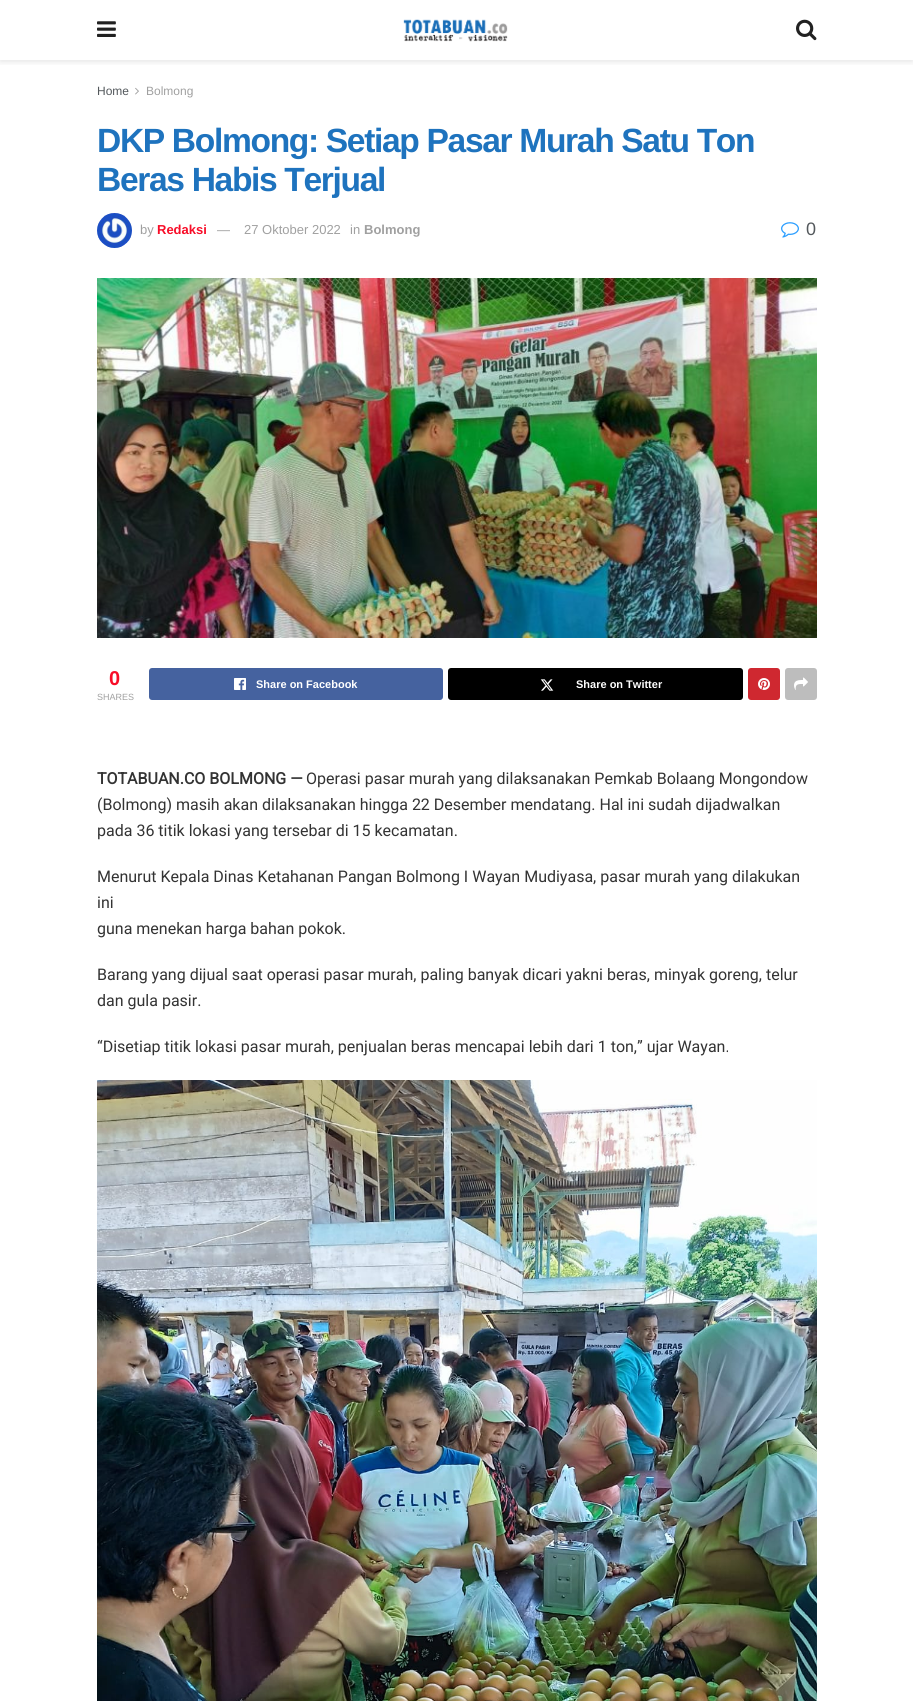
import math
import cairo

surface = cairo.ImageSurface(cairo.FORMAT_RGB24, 913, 1701)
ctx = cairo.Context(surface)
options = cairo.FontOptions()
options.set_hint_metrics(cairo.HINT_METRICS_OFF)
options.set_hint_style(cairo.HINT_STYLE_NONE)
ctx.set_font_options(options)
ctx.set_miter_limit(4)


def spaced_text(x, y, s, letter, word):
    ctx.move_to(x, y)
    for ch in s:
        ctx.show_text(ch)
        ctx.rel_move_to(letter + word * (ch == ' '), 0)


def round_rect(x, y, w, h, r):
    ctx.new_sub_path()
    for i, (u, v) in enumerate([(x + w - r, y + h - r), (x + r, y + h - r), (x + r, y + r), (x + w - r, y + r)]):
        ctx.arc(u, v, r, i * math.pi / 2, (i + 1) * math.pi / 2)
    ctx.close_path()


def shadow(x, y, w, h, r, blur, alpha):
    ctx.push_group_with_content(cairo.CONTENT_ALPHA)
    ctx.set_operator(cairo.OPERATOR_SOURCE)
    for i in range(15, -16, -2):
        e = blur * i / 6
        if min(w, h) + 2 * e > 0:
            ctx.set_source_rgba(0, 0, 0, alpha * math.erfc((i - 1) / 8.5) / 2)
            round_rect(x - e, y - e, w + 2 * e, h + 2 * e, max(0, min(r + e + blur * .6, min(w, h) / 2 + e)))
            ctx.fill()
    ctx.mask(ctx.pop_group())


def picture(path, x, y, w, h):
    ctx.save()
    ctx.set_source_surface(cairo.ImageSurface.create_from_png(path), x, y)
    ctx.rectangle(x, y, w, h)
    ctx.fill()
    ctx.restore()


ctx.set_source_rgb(1, 1, 1)
ctx.paint()
ctx.save()
ctx.rectangle(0, 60, 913, 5)
ctx.clip()
ctx.set_source_rgb(0, 0, 0)
shadow(0, 2, 913, 60, 0, 3, 0.1)
ctx.restore()
picture("img1.png", 97, 21, 19, 16)
picture("img2.png", 403, 19, 105, 23)
picture("img3.png", 796, 19, 21, 22)
ctx.select_font_face("Liberation Sans")
ctx.set_font_size(12)
ctx.set_source_rgb(0.325, 0.345, 0.361)
ctx.move_to(97, 95)
ctx.show_text("Home")
picture("img4.png", 135, 87, 4, 8)
ctx.set_source_rgb(0.627, 0.627, 0.627)
ctx.move_to(146, 95)
ctx.show_text("Bolmong")
ctx.select_font_face("Liberation Sans", cairo.FONT_SLANT_NORMAL, cairo.FONT_WEIGHT_BOLD)
ctx.set_font_size(33.6)
ctx.set_source_rgb(0.118, 0.451, 0.745)
spaced_text(97, 152, "DKP Bolmong: Setiap Pasar Murah Satu Ton", -1.35, 0)
spaced_text(97, 191, "Beras Habis Terjual", -1.35, 0)
picture("img5.png", 97, 213, 35, 35)
ctx.select_font_face("Liberation Sans")
ctx.set_font_size(13)
ctx.set_source_rgb(0.627, 0.627, 0.627)
ctx.move_to(140, 234)
ctx.show_text("by")
ctx.select_font_face("Liberation Sans", cairo.FONT_SLANT_NORMAL, cairo.FONT_WEIGHT_BOLD)
ctx.set_source_rgb(0.969, 0.051, 0.157)
ctx.move_to(157, 234)
ctx.show_text("Redaksi")
ctx.select_font_face("Liberation Sans")
ctx.set_source_rgb(0.627, 0.627, 0.627)
ctx.move_to(217, 234)
ctx.show_text("—")
ctx.move_to(244, 234)
ctx.show_text("27 Oktober 2022")
ctx.move_to(350, 234)
ctx.show_text("in")
ctx.select_font_face("Liberation Sans", cairo.FONT_SLANT_NORMAL, cairo.FONT_WEIGHT_BOLD)
ctx.move_to(364, 234)
ctx.show_text("Bolmong")
picture("img6.png", 781, 222, 18, 16)
ctx.select_font_face("Liberation Sans")
ctx.set_font_size(18)
ctx.set_source_rgb(0.325, 0.345, 0.361)
ctx.move_to(806, 235)
ctx.show_text("0")
picture("img7.png", 97, 278, 720, 360)
ctx.select_font_face("Liberation Sans", cairo.FONT_SLANT_NORMAL, cairo.FONT_WEIGHT_BOLD)
ctx.set_font_size(20)
ctx.set_source_rgb(0.969, 0.051, 0.157)
ctx.move_to(109, 685)
ctx.show_text("0")
ctx.select_font_face("Liberation Sans")
ctx.set_font_size(9)
ctx.set_source_rgb(0.627, 0.627, 0.627)
ctx.move_to(97, 700)
ctx.show_text("SHARES")
ctx.set_source_rgb(0.271, 0.384, 0.624)
round_rect(149, 668, 294, 32, 3)
ctx.fill()
picture("img8.png", 234, 678, 12, 12)
ctx.select_font_face("Liberation Sans", cairo.FONT_SLANT_NORMAL, cairo.FONT_WEIGHT_BOLD)
ctx.set_font_size(11)
ctx.set_source_rgb(1, 1, 1)
ctx.move_to(256, 688)
ctx.show_text("Share on Facebook")
ctx.set_source_rgb(0, 0, 0)
round_rect(448, 668, 295, 32, 3)
ctx.fill()
picture("img9.png", 540, 679, 14, 12)
ctx.set_source_rgb(1, 1, 1)
ctx.move_to(576, 688)
ctx.show_text("Share on Twitter")
ctx.set_source_rgb(0.812, 0.157, 0.188)
round_rect(748, 668, 32, 32, 3)
ctx.fill()
picture("img10.png", 758, 678, 12, 12)
ctx.set_source_rgb(0.741, 0.741, 0.741)
round_rect(785, 668, 32, 32, 3)
ctx.fill()
picture("img11.png", 794, 677, 14, 13)
ctx.select_font_face("Roboto", cairo.FONT_SLANT_NORMAL, cairo.FONT_WEIGHT_BOLD)
ctx.set_font_size(16)
ctx.set_source_rgb(0.2, 0.2, 0.2)
ctx.move_to(97, 784)
ctx.show_text("TOTABUAN.CO BOLMONG —")
ctx.select_font_face("Roboto")
ctx.move_to(306, 784)
ctx.show_text("Operasi pasar murah yang dilaksanakan Pemkab Bolaang Mongondow")
ctx.move_to(97, 810)
ctx.show_text("(Bolmong) masih akan dilaksanakan hingga 22 Desember mendatang. Hal ini sudah dijadwalkan")
ctx.move_to(97, 836)
ctx.show_text("pada 36 titik lokasi yang tersebar di 15 kecamatan.")
ctx.move_to(97, 882)
ctx.show_text("Menurut Kepala Dinas Ketahanan Pangan Bolmong I Wayan Mudiyasa, pasar murah yang dilakukan")
ctx.move_to(97, 908)
ctx.show_text("ini")
ctx.move_to(97, 934)
ctx.show_text("guna menekan harga bahan pokok.")
ctx.move_to(97, 980)
ctx.show_text("Barang yang dijual saat operasi pasar murah, paling banyak dicari yakni beras, minyak goreng, telur")
ctx.move_to(97, 1006)
ctx.show_text("dan gula pasir.")
ctx.move_to(97, 1052)
ctx.show_text("“Disetiap titik lokasi pasar murah, penjualan beras mencapai lebih dari 1 ton,” ujar Wayan.")
picture("img12.png", 97, 1080, 720, 621)
surface.write_to_png("page.png")
